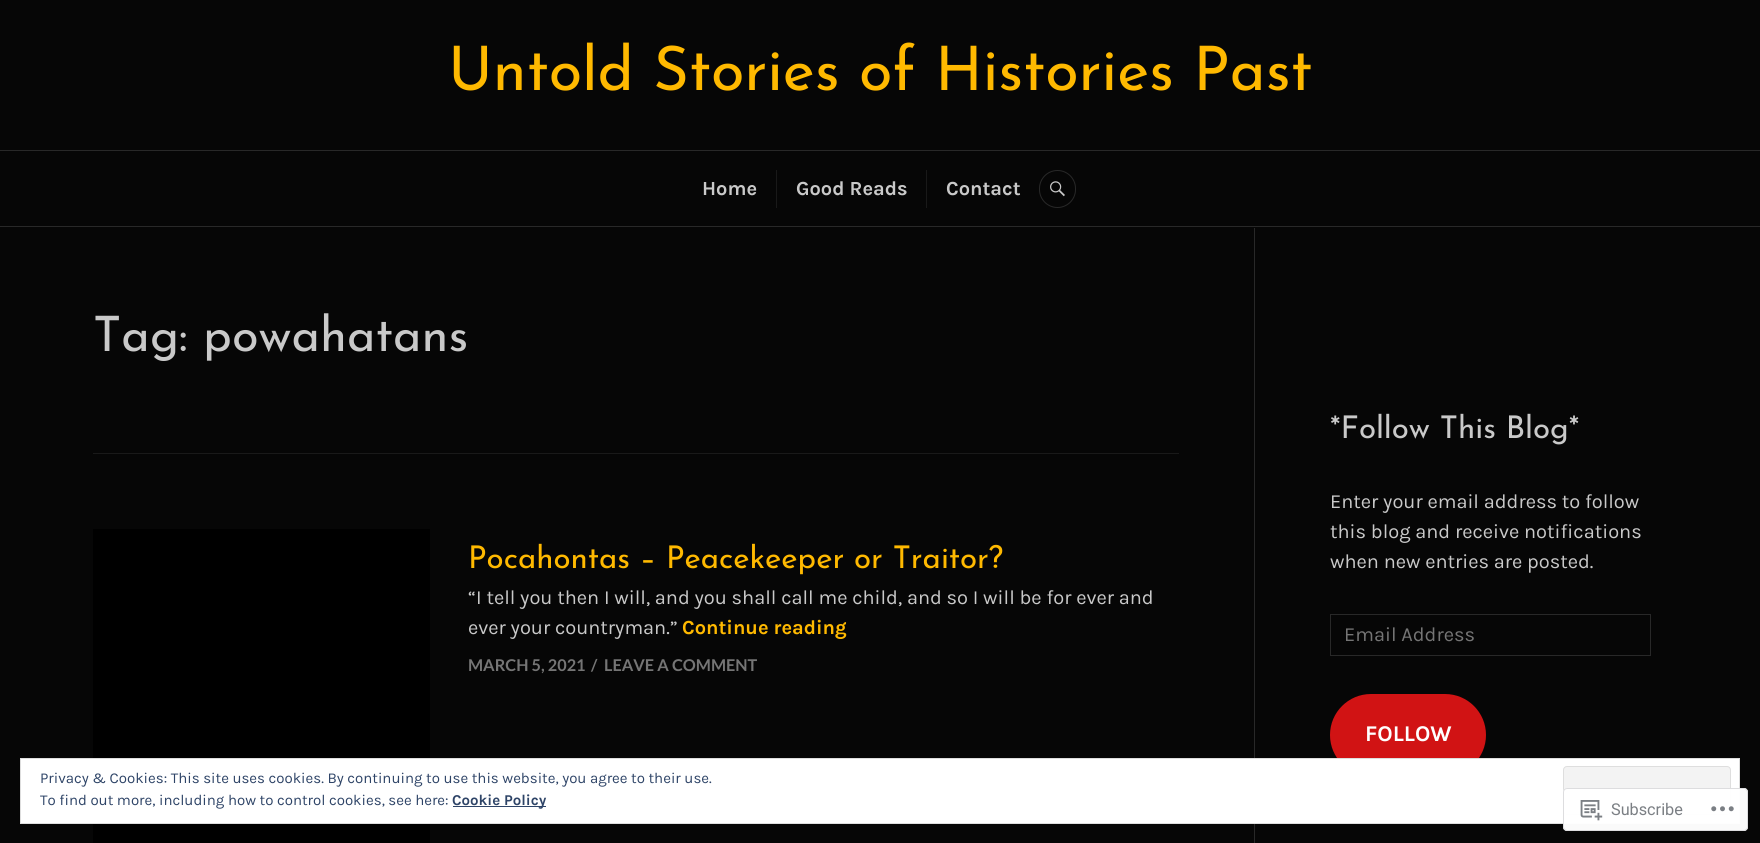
import math
import cairo

surface = cairo.ImageSurface(cairo.FORMAT_RGB24, 1760, 843)
ctx = cairo.Context(surface)
options = cairo.FontOptions()
options.set_hint_metrics(cairo.HINT_METRICS_OFF)
options.set_hint_style(cairo.HINT_STYLE_NONE)
ctx.set_font_options(options)
ctx.set_miter_limit(4)


def round_rect(x, y, w, h, r):
    ctx.new_sub_path()
    for i, (u, v) in enumerate([(x + w - r, y + h - r), (x + r, y + h - r), (x + r, y + r), (x + w - r, y + r)]):
        ctx.arc(u, v, r, i * math.pi / 2, (i + 1) * math.pi / 2)
    ctx.close_path()


def picture(path, x, y, w, h):
    ctx.save()
    ctx.set_source_surface(cairo.ImageSurface.create_from_png(path), x, y)
    ctx.rectangle(x, y, w, h)
    ctx.fill()
    ctx.restore()


ctx.set_source_rgb(0.024, 0.024, 0.024)
ctx.paint()
ctx.set_source_rgb(0.157, 0.157, 0.157)
ctx.rectangle(0, 226, 1760, 1)
ctx.fill()
ctx.select_font_face("Josefin Sans Thin")
ctx.set_font_size(61.25)
ctx.set_source_rgb(1, 0.725, 0)
ctx.move_to(448, 90)
ctx.show_text("Untold Stories of Histories Past")
ctx.set_source_rgb(0.157, 0.157, 0.157)
ctx.rectangle(0, 150, 1760, 1)
ctx.fill()
ctx.select_font_face("Karla", cairo.FONT_SLANT_NORMAL, cairo.FONT_WEIGHT_BOLD)
ctx.set_font_size(20)
ctx.set_source_rgb(0.788, 0.788, 0.788)
ctx.move_to(702, 195)
ctx.show_text("Home")
ctx.set_source_rgb(0.098, 0.098, 0.098)
ctx.rectangle(776, 170, 1, 38)
ctx.fill()
ctx.set_source_rgb(0.788, 0.788, 0.788)
ctx.move_to(796, 195)
ctx.show_text("Good Reads")
ctx.set_source_rgb(0.098, 0.098, 0.098)
ctx.rectangle(926, 170, 1, 38)
ctx.fill()
ctx.set_source_rgb(0.788, 0.788, 0.788)
ctx.move_to(946, 195)
ctx.show_text("Contact")
round_rect(1039.5, 170.5, 36, 37, 18)
ctx.set_source_rgb(0.157, 0.157, 0.157)
ctx.set_line_width(1)
ctx.stroke()
picture("img1.png", 1050, 181, 15, 16)
ctx.rectangle(1254, 228, 1, 615)
ctx.fill()
ctx.set_source_rgb(0.098, 0.098, 0.098)
ctx.rectangle(93, 453, 1086, 1)
ctx.fill()
ctx.select_font_face("Josefin Sans Thin")
ctx.set_font_size(48.75)
ctx.set_source_rgb(0.788, 0.788, 0.788)
ctx.move_to(93, 351)
ctx.show_text("Tag: powahatans")
ctx.set_source_rgb(0, 0, 0)
ctx.rectangle(93, 529, 337, 314)
ctx.fill()
ctx.set_font_size(31.25)
ctx.set_source_rgb(1, 0.725, 0)
ctx.move_to(468, 568)
ctx.show_text("Pocahontas – Peacekeeper or Traitor?")
ctx.select_font_face("Karla")
ctx.set_font_size(20)
ctx.set_source_rgb(0.788, 0.788, 0.788)
ctx.move_to(468, 604)
ctx.show_text("“I tell you then I will, and you shall call me child, and so I will be for ever and")
ctx.move_to(468, 634)
ctx.show_text("ever your countryman.”")
ctx.select_font_face("Karla", cairo.FONT_SLANT_NORMAL, cairo.FONT_WEIGHT_BOLD)
ctx.set_source_rgb(1, 0.725, 0)
ctx.move_to(682, 634)
ctx.show_text("Continue reading")
ctx.select_font_face("Lato", cairo.FONT_SLANT_NORMAL, cairo.FONT_WEIGHT_BOLD)
ctx.set_font_size(16.25)
ctx.set_source_rgb(0.459, 0.459, 0.459)
ctx.move_to(468, 671)
ctx.show_text("MARCH 5, 2021")
ctx.move_to(591, 671)
ctx.show_text("/")
ctx.move_to(604, 671)
ctx.show_text("LEAVE A COMMENT")
ctx.select_font_face("Josefin Sans Thin")
ctx.set_font_size(31.25)
ctx.set_source_rgb(0.788, 0.788, 0.788)
ctx.move_to(1330, 438)
ctx.show_text("*Follow This Blog*")
ctx.select_font_face("Karla")
ctx.set_font_size(20)
ctx.move_to(1330, 508)
ctx.show_text("Enter your email address to follow")
ctx.move_to(1330, 538)
ctx.show_text("this blog and receive notifications")
ctx.move_to(1330, 568)
ctx.show_text("when new entries are posted.")
ctx.rectangle(1330.5, 614.5, 320, 41)
ctx.set_source_rgb(0.157, 0.157, 0.157)
ctx.stroke()
ctx.set_source_rgb(0.459, 0.459, 0.459)
ctx.move_to(1344, 641)
ctx.show_text("Email Address")
ctx.set_source_rgb(0.82, 0.078, 0.082)
round_rect(1331.5, 695.5, 153, 79, 39.5)
ctx.fill_preserve()
ctx.set_line_width(3)
ctx.stroke()
ctx.select_font_face("Karla", cairo.FONT_SLANT_NORMAL, cairo.FONT_WEIGHT_BOLD)
ctx.set_font_size(22.5)
ctx.set_source_rgb(1, 1, 1)
ctx.move_to(1365, 741)
ctx.show_text("FOLLOW")
ctx.rectangle(20.5, 758.5, 1719, 65)
ctx.fill_preserve()
ctx.set_source_rgb(0.871, 0.871, 0.871)
ctx.set_line_width(1)
ctx.stroke()
ctx.select_font_face("Karla")
ctx.set_font_size(15)
ctx.set_source_rgb(0.18, 0.267, 0.404)
ctx.move_to(40, 783)
ctx.show_text("Privacy & Cookies: This site uses cookies. By continuing to use this website, you agree to their use.")
ctx.set_source_rgb(0.953, 0.953, 0.953)
round_rect(1563.5, 766.5, 167, 48, 3.5)
ctx.fill_preserve()
ctx.set_source_rgb(0.871, 0.871, 0.871)
ctx.stroke()
ctx.set_source_rgb(0.18, 0.267, 0.404)
ctx.move_to(40, 805)
ctx.show_text("To find out more, including how to control cookies, see here:")
ctx.rectangle(453, 806, 93, 1)
ctx.fill()
ctx.select_font_face("Karla", cairo.FONT_SLANT_NORMAL, cairo.FONT_WEIGHT_BOLD)
ctx.move_to(452, 805)
ctx.show_text("Cookie Policy")
ctx.set_source_rgba(1, 1, 1, 0.98)
round_rect(1563, 788, 185, 43, 4)
ctx.fill()
round_rect(1563.5, 788.5, 184, 42, 3.5)
ctx.set_source_rgba(0.863, 0.863, 0.871, 0.98)
ctx.stroke()
picture("img2.png", 1580, 800, 23, 21)
ctx.select_font_face("Roboto")
ctx.set_font_size(16.25)
ctx.set_source_rgb(0.482, 0.498, 0.518)
ctx.move_to(1611, 815)
ctx.show_text("Subscribe")
picture("img3.png", 1711, 806, 23, 6)
surface.write_to_png("page.png")
